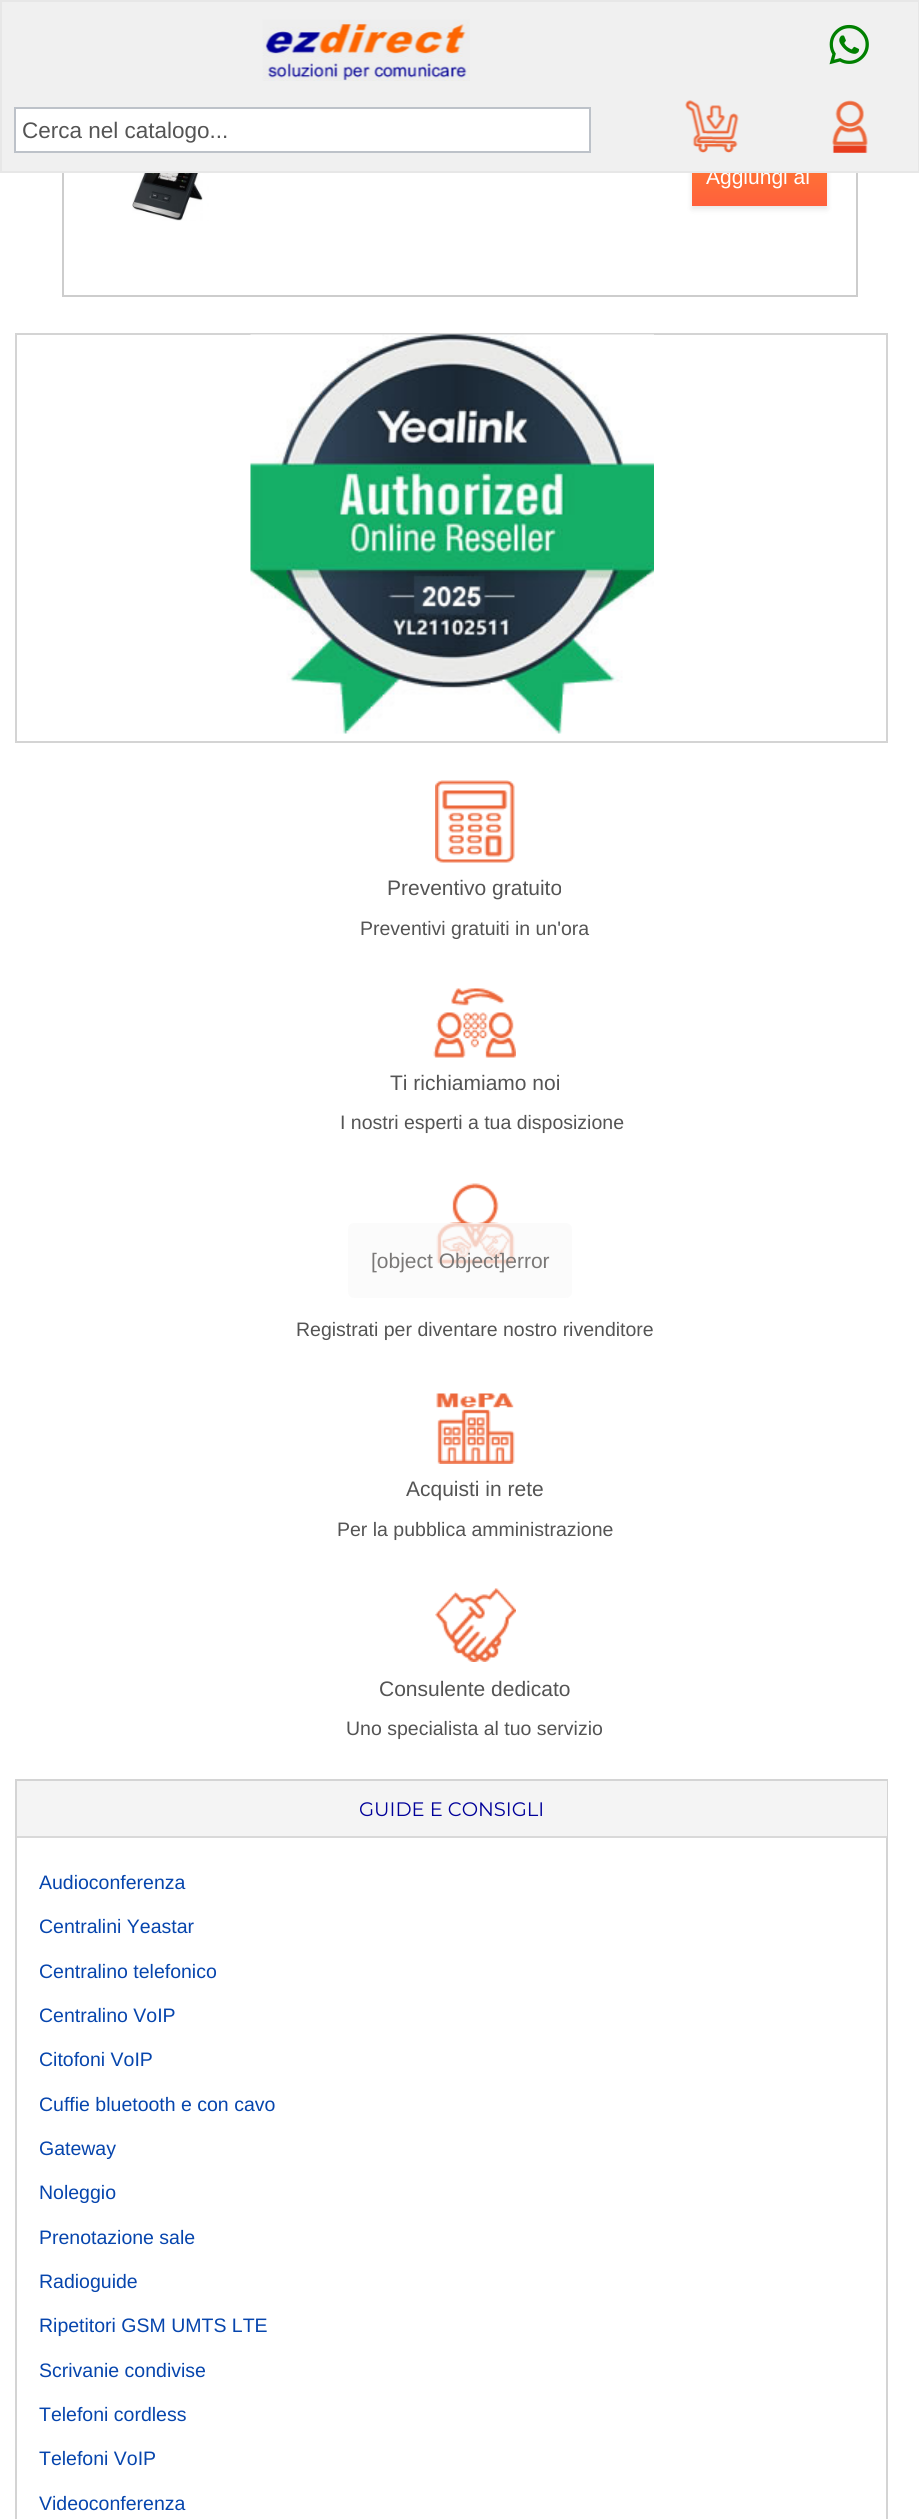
import math
import cairo

surface = cairo.ImageSurface(cairo.FORMAT_RGB24, 919, 2519)
ctx = cairo.Context(surface)
options = cairo.FontOptions()
options.set_hint_metrics(cairo.HINT_METRICS_OFF)
options.set_hint_style(cairo.HINT_STYLE_NONE)
ctx.set_font_options(options)
ctx.set_miter_limit(4)


def round_rect(x, y, w, h, r):
    ctx.new_sub_path()
    for i, (u, v) in enumerate([(x + w - r, y + h - r), (x + r, y + h - r), (x + r, y + r), (x + w - r, y + r)]):
        ctx.arc(u, v, r, i * math.pi / 2, (i + 1) * math.pi / 2)
    ctx.close_path()


def shadow(x, y, w, h, r, blur, alpha):
    ctx.push_group_with_content(cairo.CONTENT_ALPHA)
    ctx.set_operator(cairo.OPERATOR_SOURCE)
    for i in range(15, -16, -2):
        e = blur * i / 6
        if min(w, h) + 2 * e > 0:
            ctx.set_source_rgba(0, 0, 0, alpha * math.erfc((i - 1) / 8.5) / 2)
            round_rect(x - e, y - e, w + 2 * e, h + 2 * e, max(0, min(r + e + blur * .6, min(w, h) / 2 + e)))
            ctx.fill()
    ctx.mask(ctx.pop_group())


def picture(path, x, y, w, h):
    ctx.save()
    ctx.set_source_surface(cairo.ImageSurface.create_from_png(path), x, y)
    ctx.rectangle(x, y, w, h)
    ctx.fill()
    ctx.restore()


ctx.set_source_rgb(1, 1, 1)
ctx.paint()
ctx.rectangle(63, 73, 794, 223)
ctx.set_source_rgb(0.804, 0.804, 0.804)
ctx.stroke()
ctx.set_source_rgb(0, 0, 0)
shadow(692, 149, 135, 60, 0, 3, 0.1)
gradient = cairo.LinearGradient(759, 146, 759, 206)
gradient.add_color_stop_rgba(0, 1, 0.494, 0.192, 1)
gradient.add_color_stop_rgba(1, 1, 0.376, 0.235, 1)
ctx.set_source(gradient)
ctx.rectangle(692, 173, 135, 33)
ctx.fill()
ctx.select_font_face("Liberation Sans")
ctx.set_font_size(21)
ctx.set_source_rgb(1, 1, 1)
ctx.move_to(706, 184)
ctx.show_text("Aggiungi al")
ctx.set_source_rgb(0.941, 0.941, 0.941)
ctx.rectangle(1, 1, 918, 171)
ctx.fill_preserve()
ctx.set_source_rgb(0.906, 0.906, 0.906)
ctx.stroke()
picture("img1.png", 262, 19, 208, 62)
picture("img2.png", 829, 24, 40, 41)
ctx.set_source_rgb(1, 1, 1)
ctx.rectangle(15, 108, 575, 44)
ctx.fill_preserve()
ctx.set_source_rgb(0.741, 0.761, 0.788)
ctx.stroke()
ctx.set_font_size(22.5)
ctx.set_source_rgb(0.329, 0.329, 0.329)
ctx.move_to(22, 138)
ctx.show_text("Cerca nel catalogo...")
picture("img3.png", 685, 100, 54, 53)
picture("img4.png", 832, 100, 36, 53)
picture("img5.png", 132, 173, 77, 48)
ctx.rectangle(16, 334, 871, 408)
ctx.set_source_rgb(0.831, 0.831, 0.831)
ctx.stroke()
picture("img6.png", 250, 334, 404, 400)
picture("img7.png", 435, 780, 80, 83)
ctx.set_font_size(21)
ctx.set_source_rgb(0.329, 0.329, 0.329)
ctx.move_to(387, 895)
ctx.show_text("Preventivo gratuito")
ctx.set_font_size(19.5)
ctx.move_to(360, 935)
ctx.show_text("Preventivi gratuiti in un'ora")
picture("img8.png", 433, 988, 83, 70)
ctx.set_font_size(21)
ctx.move_to(390, 1090)
ctx.show_text("Ti richiamiamo noi")
ctx.set_font_size(19.5)
ctx.move_to(340, 1129)
ctx.show_text("I nostri esperti a tua disposizione")
picture("img9.png", 436, 1183, 79, 82)
ctx.move_to(296, 1336)
ctx.show_text("Registrati per diventare nostro rivenditore")
picture("img10.png", 436, 1393, 79, 71)
ctx.set_font_size(21)
ctx.move_to(406, 1496)
ctx.show_text("Acquisti in rete")
ctx.set_font_size(19.5)
ctx.move_to(337, 1536)
ctx.show_text("Per la pubblica amministrazione")
picture("img11.png", 435, 1588, 81, 74)
ctx.set_font_size(21)
ctx.move_to(379, 1696)
ctx.show_text("Consulente dedicato")
ctx.set_font_size(19.5)
ctx.move_to(346, 1735)
ctx.show_text("Uno specialista al tuo servizio")
ctx.rectangle(16, 1780, 871, 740)
ctx.set_source_rgb(0.831, 0.831, 0.831)
ctx.stroke()
ctx.set_source_rgb(0.957, 0.957, 0.957)
ctx.rectangle(17, 1781, 870, 55)
ctx.fill()
ctx.set_source_rgb(0.851, 0.851, 0.851)
ctx.rectangle(17, 1836, 870, 2)
ctx.fill()
ctx.select_font_face("Montserrat")
ctx.set_source_rgb(0, 0, 0.6)
ctx.move_to(359, 1816)
ctx.show_text("GUIDE E CONSIGLI")
ctx.select_font_face("Liberation Sans")
ctx.set_source_rgb(0.024, 0.271, 0.678)
ctx.move_to(39, 1889)
ctx.show_text("Audioconferenza")
ctx.move_to(39, 1933)
ctx.show_text("Centralini Yeastar")
ctx.move_to(39, 1978)
ctx.show_text("Centralino telefonico")
ctx.move_to(39, 2022)
ctx.show_text("Centralino VoIP")
ctx.move_to(39, 2066)
ctx.show_text("Citofoni VoIP")
ctx.move_to(39, 2111)
ctx.show_text("Cuffie bluetooth e con cavo")
ctx.move_to(39, 2155)
ctx.show_text("Gateway")
ctx.move_to(39, 2199)
ctx.show_text("Noleggio")
ctx.move_to(39, 2244)
ctx.show_text("Prenotazione sale")
ctx.move_to(39, 2288)
ctx.show_text("Radioguide")
ctx.move_to(39, 2332)
ctx.show_text("Ripetitori GSM UMTS LTE")
ctx.move_to(39, 2377)
ctx.show_text("Scrivanie condivise")
ctx.move_to(39, 2421)
ctx.show_text("Telefoni cordless")
ctx.move_to(39, 2465)
ctx.show_text("Telefoni VoIP")
ctx.move_to(39, 2510)
ctx.show_text("Videoconferenza")
ctx.set_source_rgba(0.976, 0.976, 0.976, 0.71)
round_rect(348, 1223, 224, 75, 6)
ctx.fill()
ctx.set_font_size(21)
ctx.set_source_rgb(0.478, 0.471, 0.467)
ctx.move_to(371, 1268)
ctx.show_text("[object Object]error")
surface.write_to_png("page.png")
